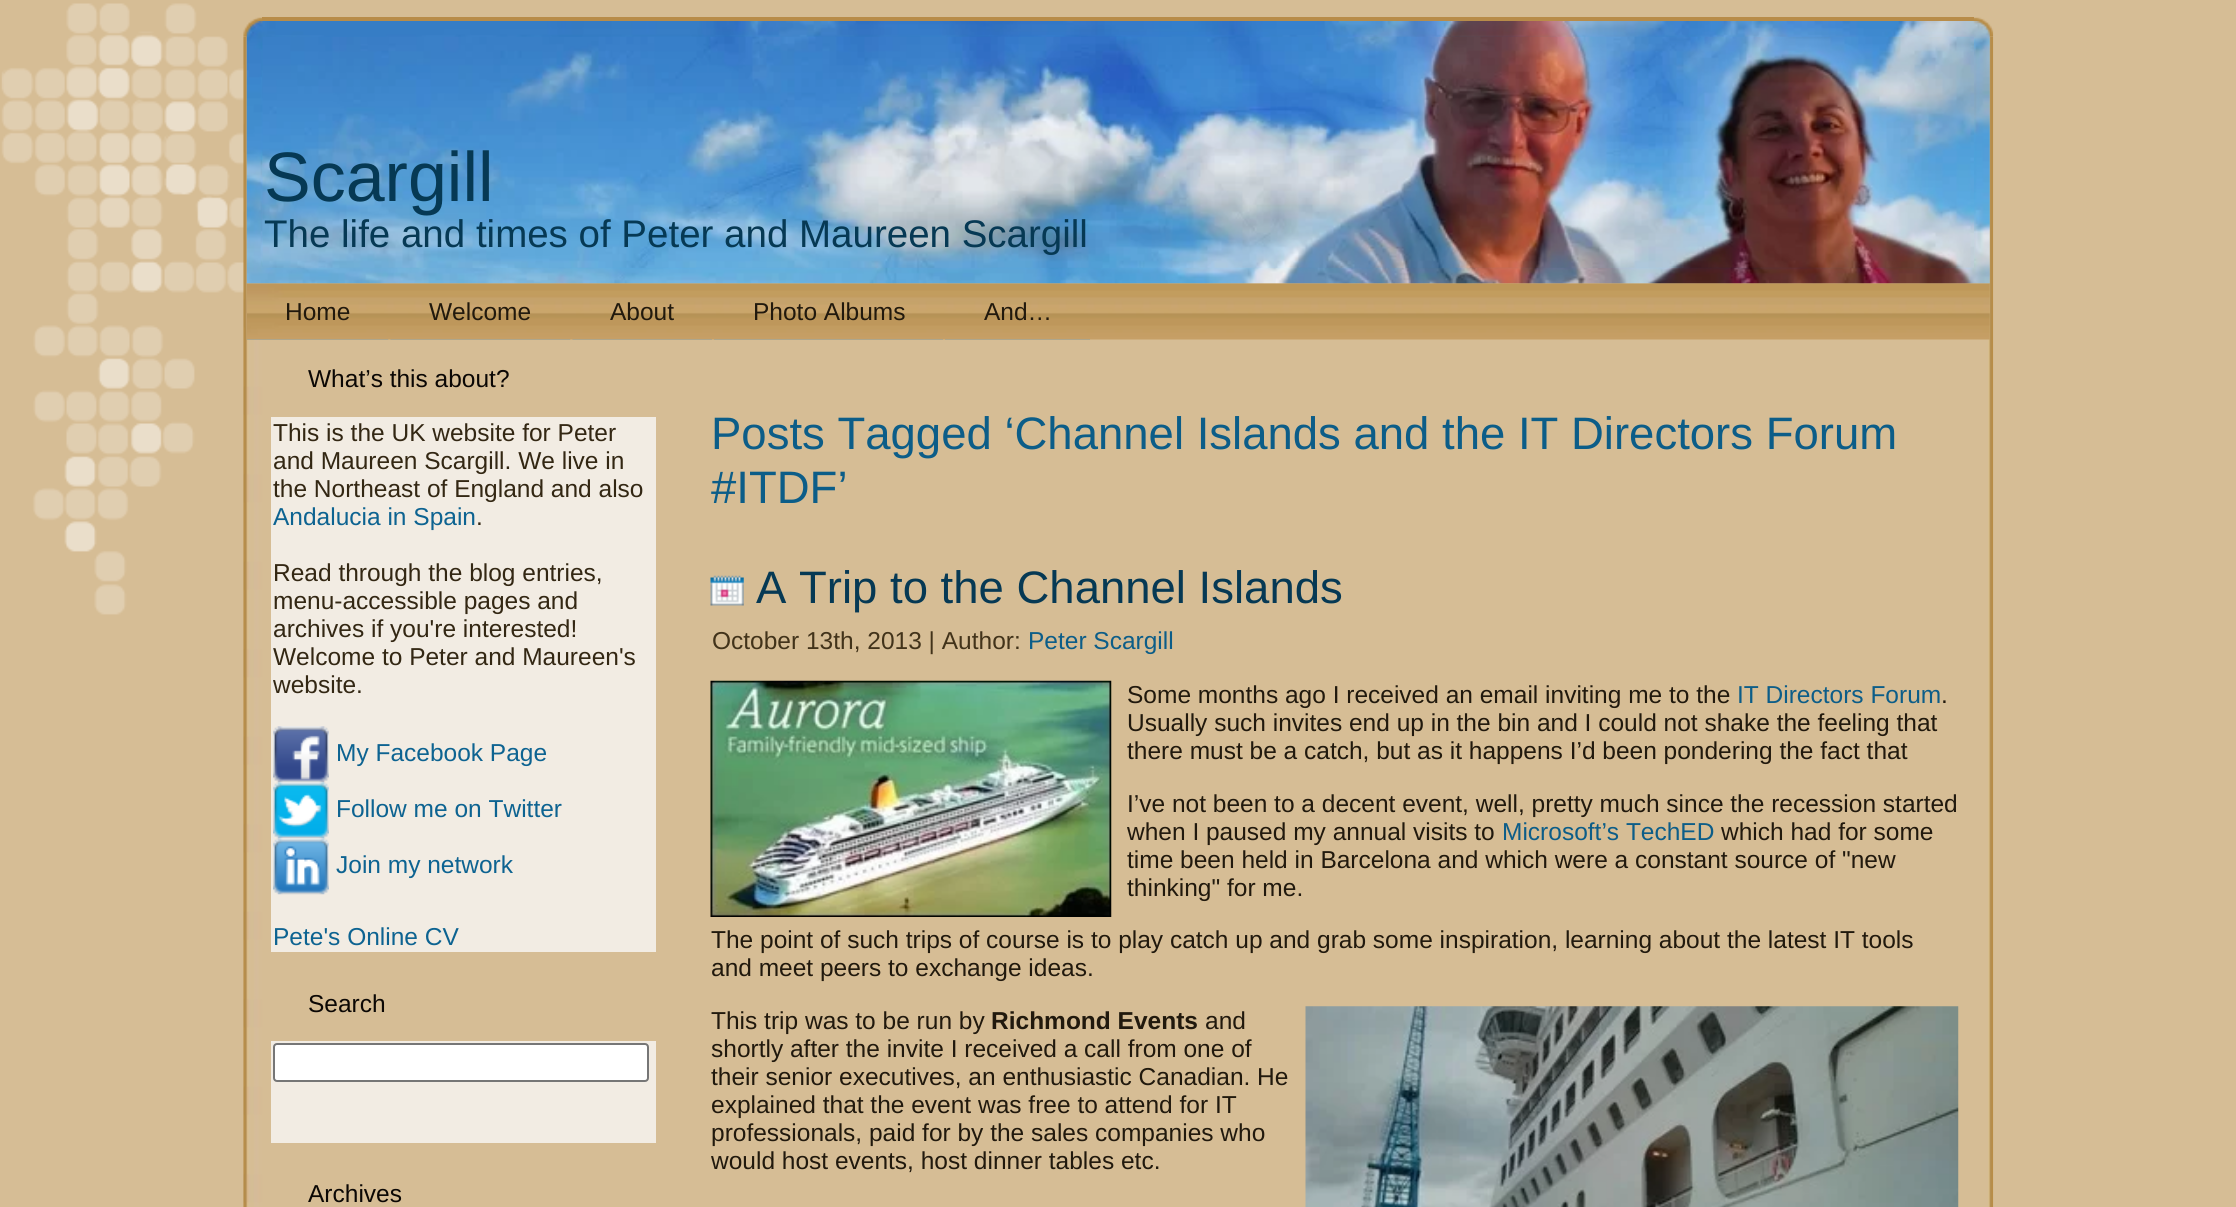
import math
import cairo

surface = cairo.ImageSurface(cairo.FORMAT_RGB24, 2236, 1207)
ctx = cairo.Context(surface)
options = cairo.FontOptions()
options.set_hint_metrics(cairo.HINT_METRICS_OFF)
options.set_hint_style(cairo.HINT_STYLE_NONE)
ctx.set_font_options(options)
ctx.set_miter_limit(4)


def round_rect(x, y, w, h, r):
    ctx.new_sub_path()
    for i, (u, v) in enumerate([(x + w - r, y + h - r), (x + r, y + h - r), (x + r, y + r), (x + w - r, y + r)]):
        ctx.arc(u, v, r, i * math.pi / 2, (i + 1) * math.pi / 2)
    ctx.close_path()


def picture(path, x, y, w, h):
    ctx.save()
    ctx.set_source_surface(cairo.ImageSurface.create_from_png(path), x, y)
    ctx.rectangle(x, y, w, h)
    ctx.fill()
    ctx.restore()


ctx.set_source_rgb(0.839, 0.741, 0.584)
ctx.paint()
picture("img1.png", 1, 3, 243, 612)
picture("img2.png", 243, 17, 19, 20)
ctx.set_source_rgb(0.722, 0.549, 0.286)
ctx.rectangle(262, 17, 1712, 7)
ctx.fill()
picture("img3.png", 1974, 17, 20, 20)
picture("img4.png", 243, 36, 20, 1171)
picture("img17.png", 1988, 37, 6, 1170)
picture("img5.png", 246, 21, 1744, 263)
picture("img6.png", 262, 36, 1712, 232)
ctx.select_font_face("Liberation Sans")
ctx.set_font_size(70)
ctx.set_source_rgb(0.027, 0.224, 0.329)
ctx.move_to(264, 201)
ctx.show_text("Scargill")
ctx.set_font_size(38.5)
ctx.move_to(264, 247)
ctx.show_text("The life and times of Peter and Maureen Scargill")
picture("img7.png", 247, 283, 1743, 57)
ctx.set_font_size(24.5)
ctx.set_source_rgb(0.129, 0.098, 0.051)
ctx.move_to(285, 320)
ctx.show_text("Home")
picture("img8.png", 247, 339, 142, 1)
ctx.move_to(429, 320)
ctx.show_text("Welcome")
picture("img9.png", 390, 339, 181, 1)
ctx.move_to(610, 320)
ctx.show_text("About")
picture("img10.png", 572, 339, 140, 1)
ctx.move_to(753, 320)
ctx.show_text("Photo Albums")
ctx.set_source_rgb(0.678, 0.651, 0.553)
ctx.rectangle(714, 339, 229, 1)
ctx.fill()
ctx.set_source_rgb(0.129, 0.098, 0.051)
ctx.move_to(984, 320)
ctx.show_text("And…")
ctx.set_source_rgb(0.678, 0.651, 0.553)
ctx.rectangle(945, 339, 145, 1)
ctx.fill()
ctx.set_source_rgb(0.043, 0.031, 0.016)
ctx.move_to(308, 387)
ctx.show_text("What’s this about?")
ctx.set_source_rgb(0.949, 0.925, 0.89)
ctx.rectangle(271, 417, 385, 535)
ctx.fill()
ctx.set_source_rgb(0.2, 0.153, 0.078)
ctx.move_to(273, 441)
ctx.show_text("This is the UK website for Peter")
ctx.move_to(273, 469)
ctx.show_text("and Maureen Scargill. We live in")
ctx.move_to(273, 497)
ctx.show_text("the Northeast of England and also")
ctx.set_source_rgb(0.051, 0.388, 0.569)
ctx.move_to(273, 525)
ctx.show_text("Andalucia in Spain")
ctx.set_source_rgb(0.2, 0.153, 0.078)
ctx.move_to(476, 525)
ctx.show_text(".")
ctx.move_to(273, 581)
ctx.show_text("Read through the blog entries,")
ctx.move_to(273, 609)
ctx.show_text("menu-accessible pages and")
ctx.move_to(273, 637)
ctx.show_text("archives if you're interested!")
ctx.move_to(273, 665)
ctx.show_text("Welcome to Peter and Maureen's")
ctx.move_to(273, 693)
ctx.show_text("website.")
picture("img11.png", 273, 726, 56, 57)
ctx.set_source_rgb(0.051, 0.388, 0.569)
ctx.move_to(336, 761)
ctx.show_text("My Facebook Page")
picture("img12.png", 273, 782, 56, 57)
ctx.move_to(336, 817)
ctx.show_text("Follow me on Twitter")
picture("img13.png", 273, 838, 56, 57)
ctx.move_to(336, 873)
ctx.show_text("Join my network")
ctx.move_to(273, 945)
ctx.show_text("Pete's Online CV")
ctx.set_source_rgb(0.043, 0.031, 0.016)
ctx.move_to(308, 1012)
ctx.show_text("Search")
ctx.set_source_rgb(0.949, 0.925, 0.89)
ctx.rectangle(271, 1041, 385, 102)
ctx.fill()
ctx.set_source_rgb(1, 1, 1)
round_rect(274, 1044, 374, 37, 3)
ctx.fill_preserve()
ctx.set_source_rgb(0.463, 0.463, 0.463)
ctx.stroke()
ctx.set_source_rgb(0.043, 0.031, 0.016)
ctx.move_to(308, 1202)
ctx.show_text("Archives")
ctx.set_font_size(45.5)
ctx.set_source_rgb(0.047, 0.365, 0.533)
ctx.move_to(711, 449)
ctx.show_text("Posts Tagged ‘Channel Islands and the IT Directors Forum")
ctx.move_to(711, 503)
ctx.show_text("#ITDF’")
picture("img14.png", 710, 575, 34, 31)
ctx.set_source_rgb(0.027, 0.224, 0.329)
ctx.move_to(756, 603)
ctx.show_text("A Trip to the Channel Islands")
ctx.set_font_size(24.5)
ctx.set_source_rgb(0.259, 0.2, 0.102)
ctx.move_to(712, 649)
ctx.show_text("October 13th, 2013 | Author:")
ctx.set_source_rgb(0.047, 0.365, 0.533)
ctx.move_to(1028, 649)
ctx.show_text("Peter Scargill")
picture("img15.png", 710, 680, 402, 237)
ctx.set_source_rgb(0.129, 0.098, 0.051)
ctx.move_to(1127, 703)
ctx.show_text("Some months ago I received an email inviting me to the")
ctx.set_source_rgb(0.047, 0.365, 0.533)
ctx.move_to(1737, 703)
ctx.show_text("IT Directors Forum")
ctx.set_source_rgb(0.129, 0.098, 0.051)
ctx.move_to(1941, 703)
ctx.show_text(".")
ctx.move_to(1127, 731)
ctx.show_text("Usually such invites end up in the bin and I could not shake the feeling that")
ctx.move_to(1127, 759)
ctx.show_text("there must be a catch, but as it happens I’d been pondering the fact that")
ctx.move_to(1127, 812)
ctx.show_text("I’ve not been to a decent event, well, pretty much since the recession started")
ctx.move_to(1127, 840)
ctx.show_text("when I paused my annual visits to")
ctx.set_source_rgb(0.047, 0.365, 0.533)
ctx.move_to(1502, 840)
ctx.show_text("Microsoft’s TechED")
ctx.set_source_rgb(0.129, 0.098, 0.051)
ctx.move_to(1721, 840)
ctx.show_text("which had for some")
ctx.move_to(1127, 868)
ctx.show_text("time been held in Barcelona and which were a constant source of \"new")
ctx.move_to(1127, 896)
ctx.show_text("thinking\" for me.")
ctx.move_to(711, 948)
ctx.show_text("The point of such trips of course is to play catch up and grab some inspiration, learning about the latest IT tools")
ctx.move_to(711, 976)
ctx.show_text("and meet peers to exchange ideas.")
ctx.move_to(711, 1029)
ctx.show_text("This trip was to be run by")
ctx.select_font_face("Liberation Sans", cairo.FONT_SLANT_NORMAL, cairo.FONT_WEIGHT_BOLD)
ctx.move_to(991, 1029)
ctx.show_text("Richmond Events")
ctx.select_font_face("Liberation Sans")
ctx.move_to(1205, 1029)
ctx.show_text("and")
picture("img16.png", 1305, 1006, 654, 201)
ctx.move_to(711, 1057)
ctx.show_text("shortly after the invite I received a call from one of")
ctx.move_to(711, 1085)
ctx.show_text("their senior executives, an enthusiastic Canadian. He")
ctx.move_to(711, 1113)
ctx.show_text("explained that the event was free to attend for IT")
ctx.move_to(711, 1141)
ctx.show_text("professionals, paid for by the sales companies who")
ctx.move_to(711, 1169)
ctx.show_text("would host events, host dinner tables etc.")
surface.write_to_png("page.png")
